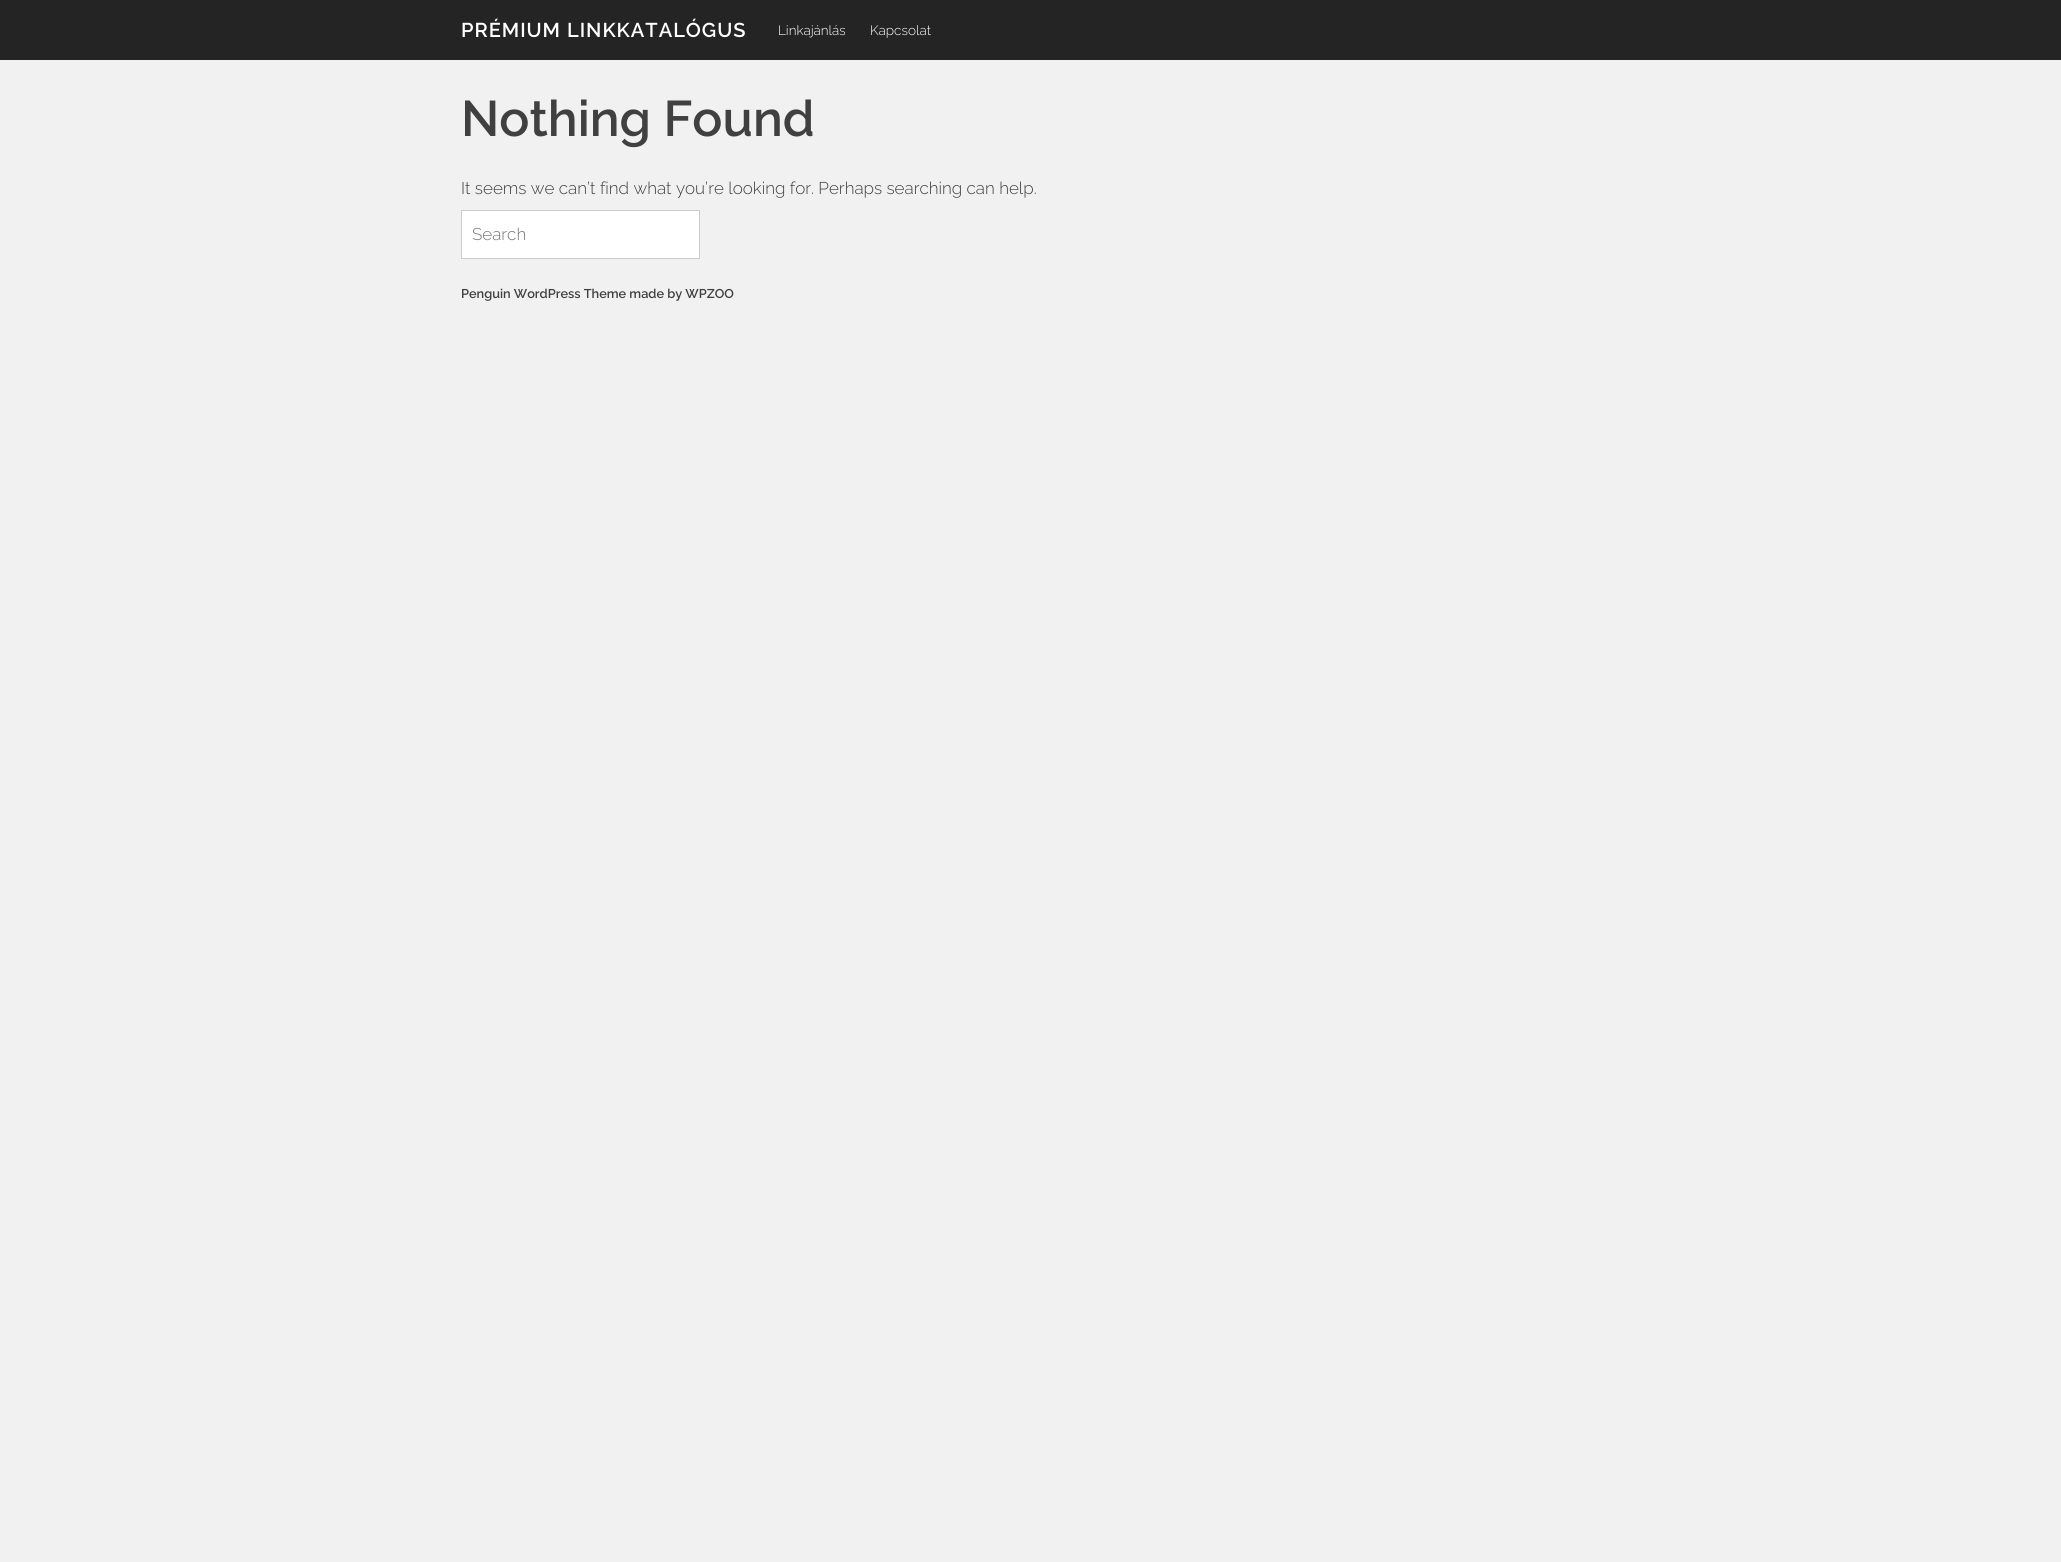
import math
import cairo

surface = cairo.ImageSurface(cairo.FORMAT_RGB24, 2061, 1562)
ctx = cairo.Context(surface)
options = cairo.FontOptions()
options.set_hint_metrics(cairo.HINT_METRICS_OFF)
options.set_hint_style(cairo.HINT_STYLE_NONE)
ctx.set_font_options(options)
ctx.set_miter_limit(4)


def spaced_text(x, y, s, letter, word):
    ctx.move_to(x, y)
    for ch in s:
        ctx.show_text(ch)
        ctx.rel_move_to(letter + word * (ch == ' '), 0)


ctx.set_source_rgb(0.945, 0.945, 0.945)
ctx.paint()
ctx.set_source_rgb(0.141, 0.141, 0.141)
ctx.rectangle(0, 0, 2061, 60)
ctx.fill()
ctx.select_font_face("Raleway SemiBold")
ctx.set_font_size(20)
ctx.set_source_rgb(1, 1, 1)
spaced_text(461, 37, "PRÉMIUM LINKKATALÓGUS", 1, 0)
ctx.select_font_face("Raleway Light")
ctx.set_font_size(13.5)
ctx.move_to(778, 35)
ctx.show_text("Linkajánlás")
ctx.move_to(870, 35)
ctx.show_text("Kapcsolat")
ctx.select_font_face("Raleway SemiBold")
ctx.set_font_size(50)
ctx.set_source_rgb(0.251, 0.251, 0.251)
ctx.move_to(461, 136)
ctx.show_text("Nothing Found")
ctx.select_font_face("Raleway Light")
ctx.set_font_size(17)
ctx.move_to(461, 194)
ctx.show_text("It seems we can’t find what you’re looking for. Perhaps searching can help.")
ctx.set_source_rgb(1, 1, 1)
ctx.rectangle(461.5, 210.5, 238, 48)
ctx.fill_preserve()
ctx.set_source_rgb(0.8, 0.8, 0.8)
ctx.set_line_width(1)
ctx.stroke()
ctx.set_source_rgb(0.459, 0.459, 0.459)
ctx.move_to(472, 240)
ctx.show_text("Search")
ctx.select_font_face("Raleway SemiBold")
ctx.set_font_size(12.75)
ctx.set_source_rgb(0.251, 0.251, 0.251)
ctx.move_to(461, 298)
ctx.show_text("Penguin WordPress Theme made by WPZOO")
surface.write_to_png("page.png")
